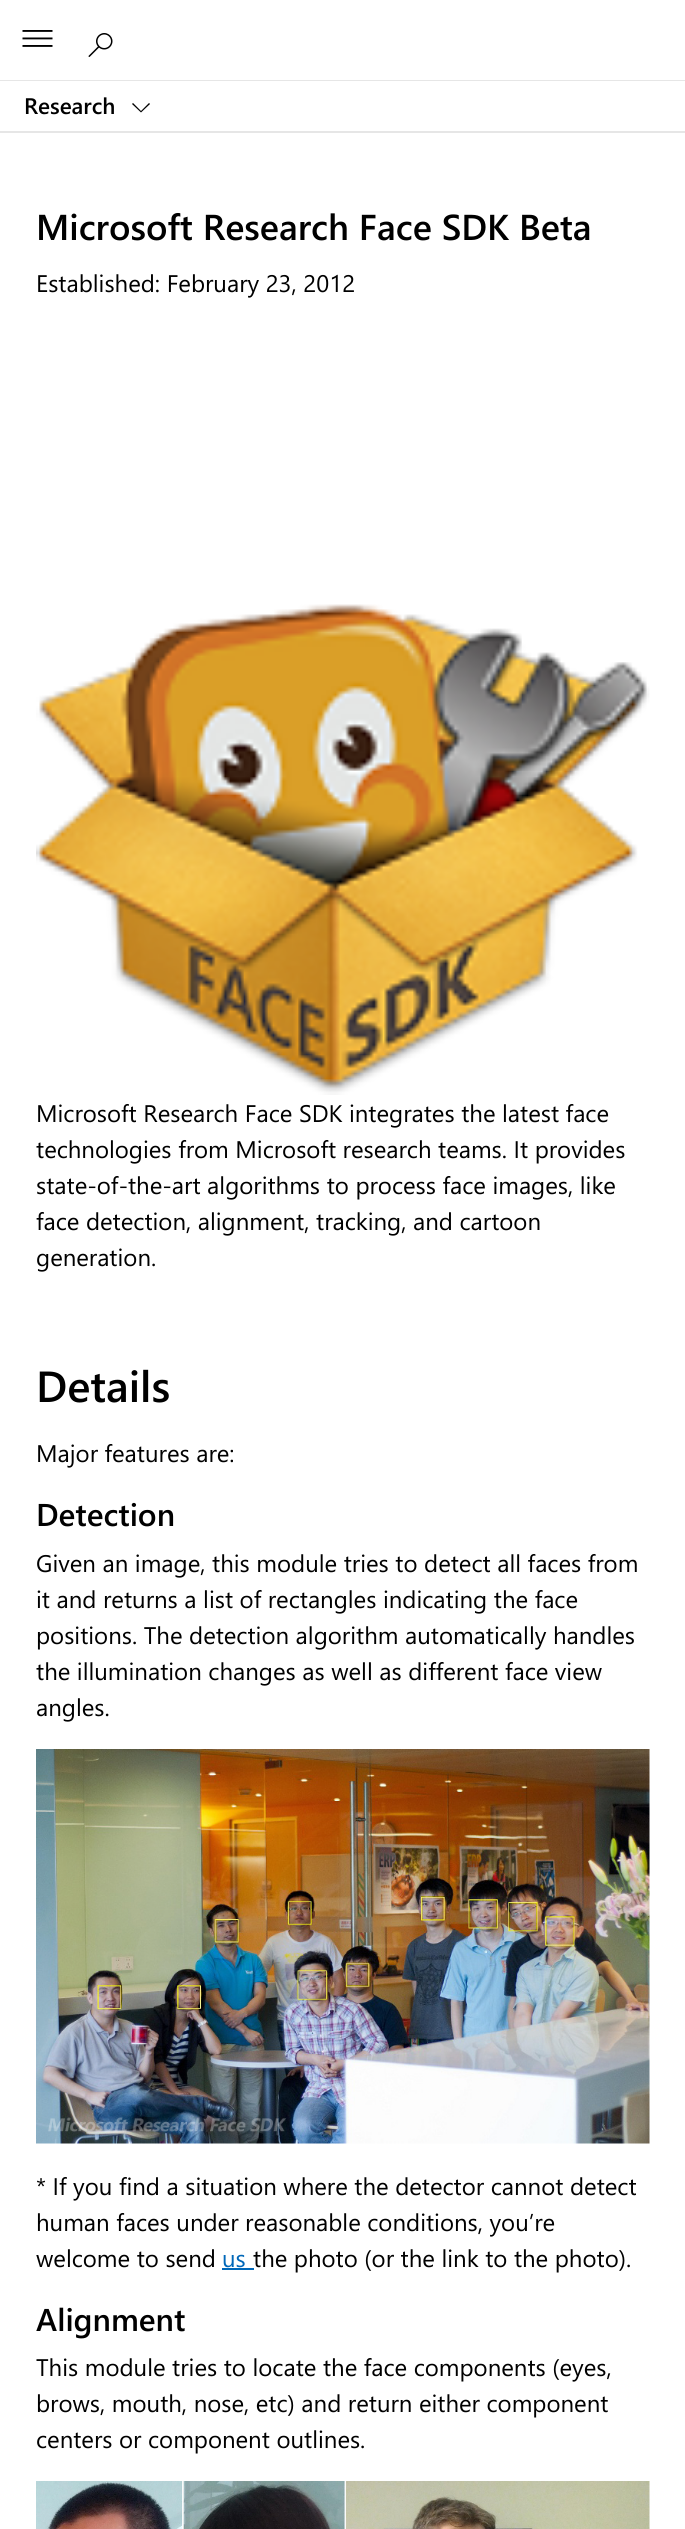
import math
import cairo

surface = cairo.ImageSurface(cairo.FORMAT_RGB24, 685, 2529)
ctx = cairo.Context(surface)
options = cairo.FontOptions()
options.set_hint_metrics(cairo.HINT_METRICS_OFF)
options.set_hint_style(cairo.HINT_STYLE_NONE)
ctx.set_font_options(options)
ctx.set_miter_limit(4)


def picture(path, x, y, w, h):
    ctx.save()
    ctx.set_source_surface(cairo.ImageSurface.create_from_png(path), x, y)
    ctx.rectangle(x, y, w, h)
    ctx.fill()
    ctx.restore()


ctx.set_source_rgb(1, 1, 1)
ctx.paint()
ctx.set_source_rgb(0.902, 0.902, 0.902)
ctx.rectangle(0, 80, 685, 1)
ctx.fill()
picture("img1.png", 22, 30, 31, 17)
picture("img2.png", 88, 33, 25, 24)
ctx.rectangle(0, 131, 685, 2)
ctx.fill()
ctx.select_font_face("Segoe UI SemiBold")
ctx.set_font_size(22.5)
ctx.set_source_rgb(0, 0, 0)
ctx.move_to(24, 114)
ctx.show_text("Research")
ctx.new_path()
ctx.move_to(149, 103)
ctx.line_to(150, 104)
ctx.line_to(141, 112.5)
ctx.line_to(132, 104)
ctx.line_to(133, 103)
ctx.line_to(141, 111)
ctx.close_path()
ctx.fill()
ctx.set_font_size(36)
ctx.move_to(36, 240)
ctx.show_text("Microsoft Research Face SDK Beta")
ctx.select_font_face("Segoe UI")
ctx.set_font_size(24)
ctx.move_to(36, 292)
ctx.show_text("Established: February 23, 2012")
picture("img3.png", 36, 604, 614, 491)
ctx.move_to(36, 1122)
ctx.show_text("Microsoft Research Face SDK integrates the latest face")
ctx.move_to(36, 1158)
ctx.show_text("technologies from Microsoft research teams. It provides")
ctx.move_to(36, 1194)
ctx.show_text("state-of-the-art algorithms to process face images, like")
ctx.move_to(36, 1230)
ctx.show_text("face detection, alignment, tracking, and cartoon")
ctx.move_to(36, 1266)
ctx.show_text("generation.")
ctx.select_font_face("Segoe UI SemiBold")
ctx.set_font_size(43.5)
ctx.move_to(36, 1402)
ctx.show_text("Details")
ctx.select_font_face("Segoe UI")
ctx.set_font_size(24)
ctx.move_to(36, 1462)
ctx.show_text("Major features are:")
ctx.select_font_face("Segoe UI SemiBold")
ctx.set_font_size(31.5)
ctx.move_to(36, 1526)
ctx.show_text("Detection")
ctx.select_font_face("Segoe UI")
ctx.set_font_size(24)
ctx.move_to(36, 1572)
ctx.show_text("Given an image, this module tries to detect all faces from")
ctx.move_to(36, 1608)
ctx.show_text("it and returns a list of rectangles indicating the face")
ctx.move_to(36, 1644)
ctx.show_text("positions. The detection algorithm automatically handles")
ctx.move_to(36, 1680)
ctx.show_text("the illumination changes as well as different face view")
ctx.move_to(36, 1716)
ctx.show_text("angles.")
picture("img4.png", 36, 1749, 614, 395)
ctx.move_to(36, 2195)
ctx.show_text("* If you find a situation where the detector cannot detect")
ctx.move_to(36, 2231)
ctx.show_text("human faces under reasonable conditions, you’re")
ctx.move_to(36, 2267)
ctx.show_text("welcome to send")
ctx.set_source_rgb(0, 0.404, 0.722)
ctx.move_to(222, 2267)
ctx.show_text("us")
ctx.rectangle(222, 2268, 32, 2)
ctx.fill()
ctx.set_source_rgb(0, 0, 0)
ctx.move_to(253, 2267)
ctx.show_text("the photo (or the link to the photo).")
ctx.select_font_face("Segoe UI SemiBold")
ctx.set_font_size(31.5)
ctx.move_to(36, 2331)
ctx.show_text("Alignment")
ctx.select_font_face("Segoe UI")
ctx.set_font_size(24)
ctx.move_to(36, 2376)
ctx.show_text("This module tries to locate the face components (eyes,")
ctx.move_to(36, 2412)
ctx.show_text("brows, mouth, nose, etc) and return either component")
ctx.move_to(36, 2448)
ctx.show_text("centers or component outlines.")
picture("img5.png", 36, 2481, 614, 48)
surface.write_to_png("page.png")
